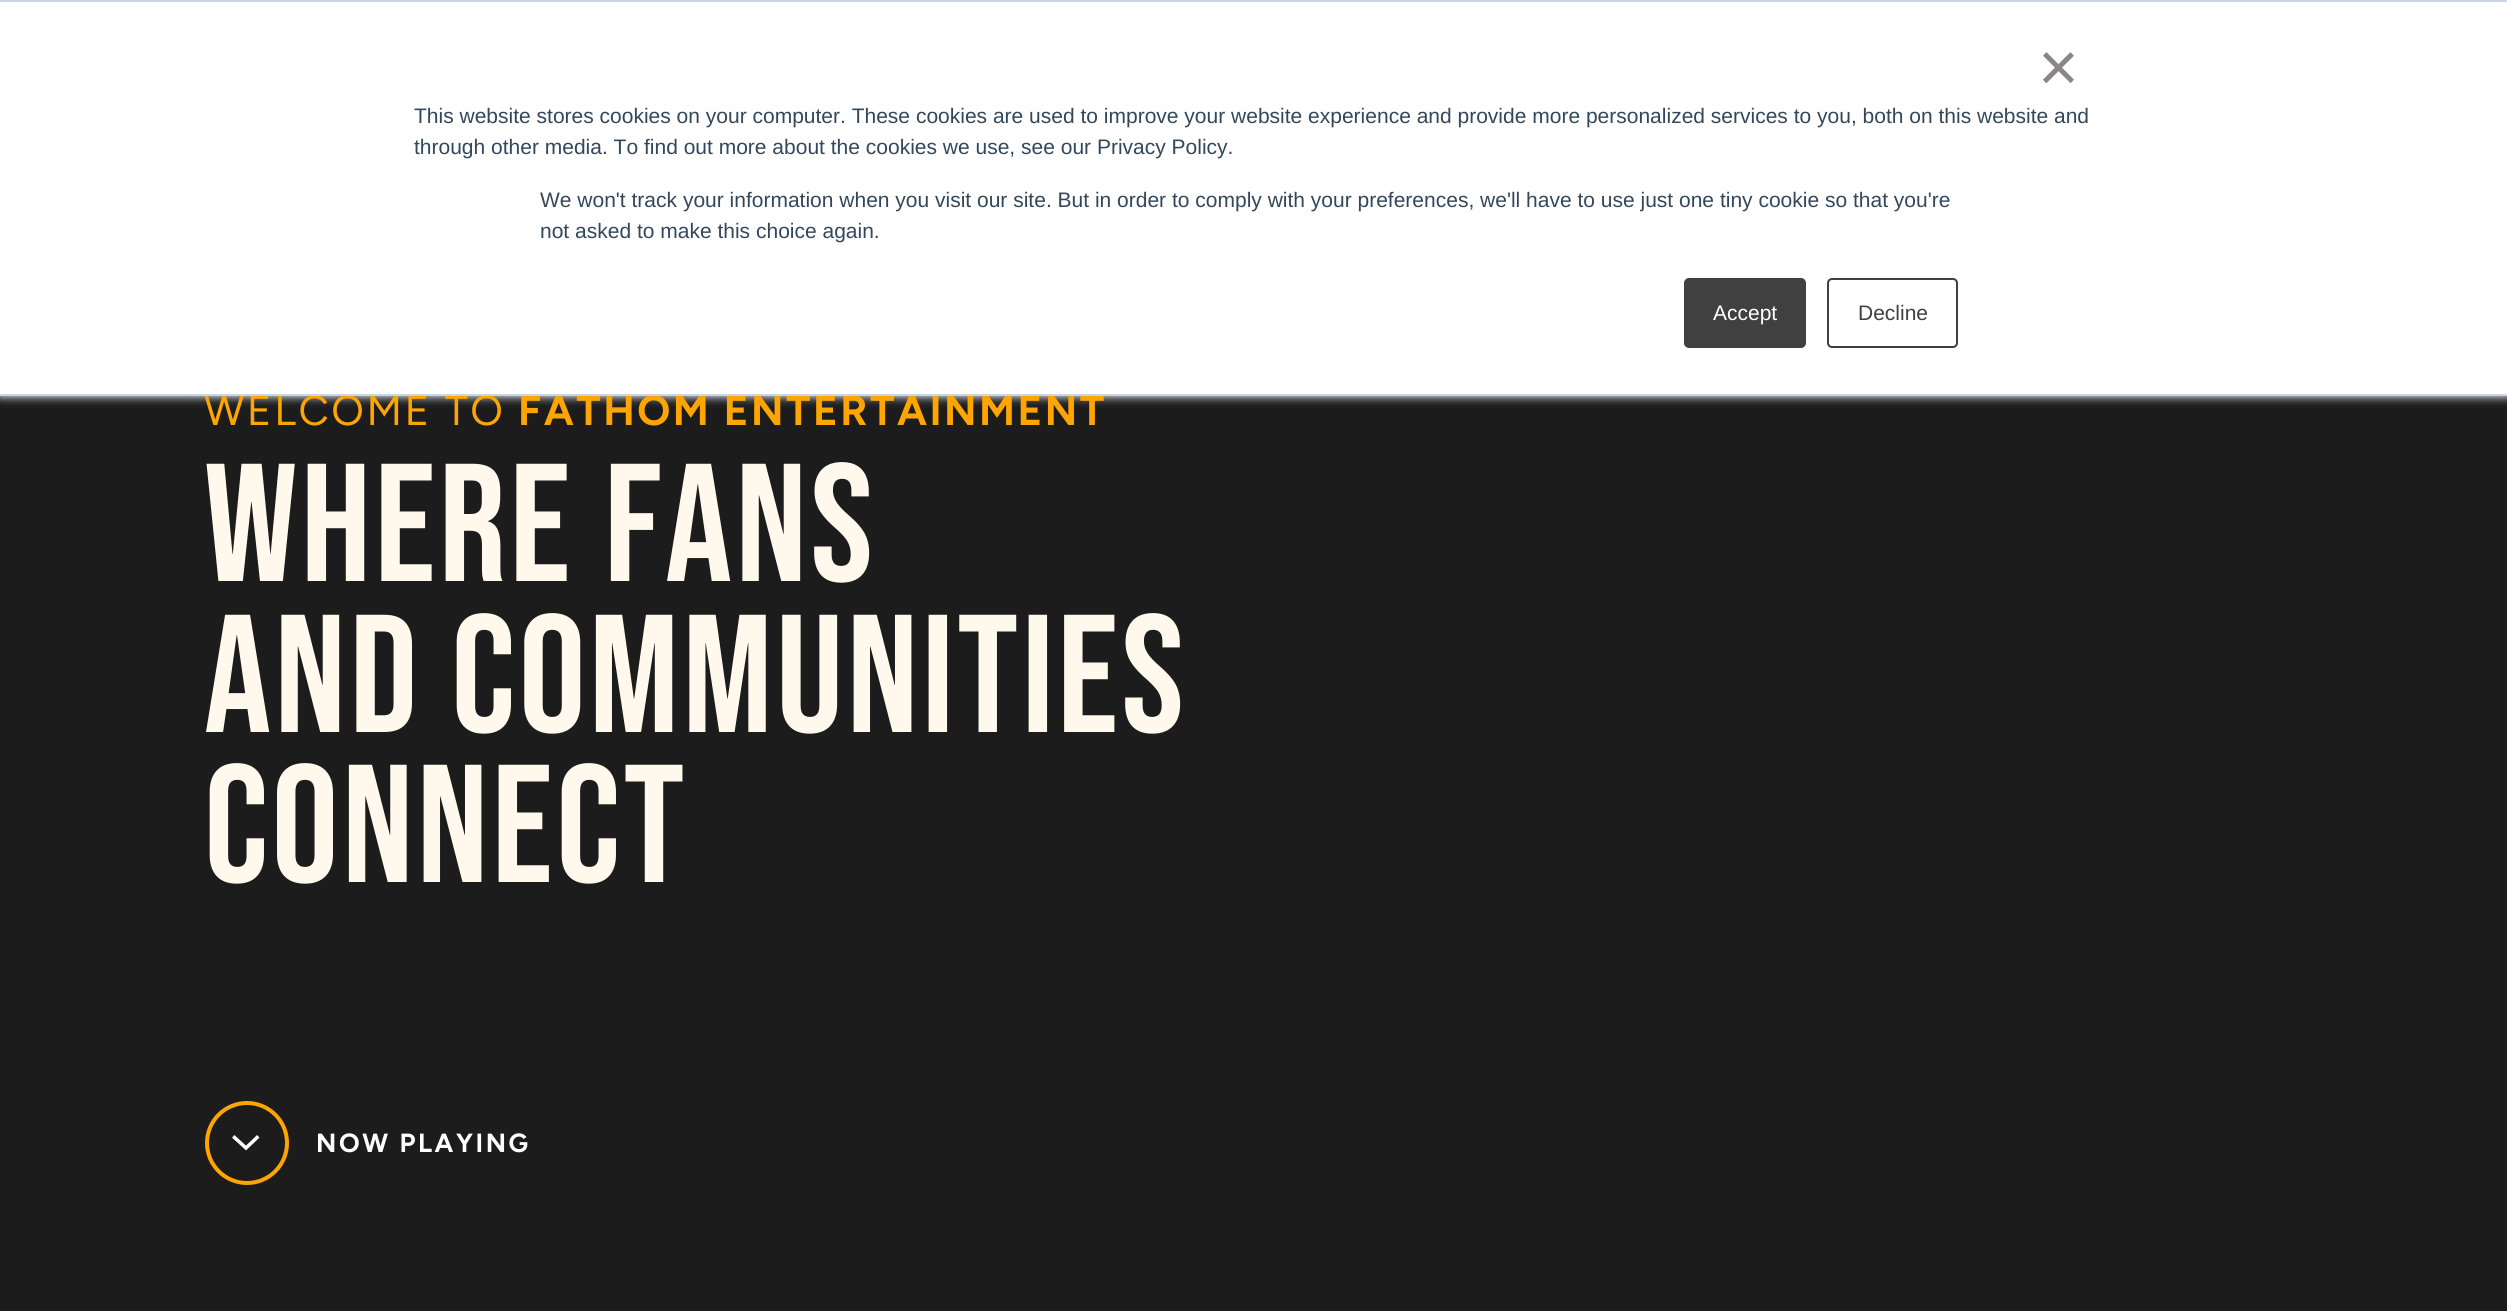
import math
import cairo

surface = cairo.ImageSurface(cairo.FORMAT_RGB24, 2507, 1311)
ctx = cairo.Context(surface)
options = cairo.FontOptions()
options.set_hint_metrics(cairo.HINT_METRICS_OFF)
options.set_hint_style(cairo.HINT_STYLE_NONE)
ctx.set_font_options(options)
ctx.set_miter_limit(4)


def spaced_text(x, y, s, letter, word):
    ctx.move_to(x, y)
    for ch in s:
        ctx.show_text(ch)
        ctx.rel_move_to(letter + word * (ch == ' '), 0)


def round_rect(x, y, w, h, r):
    ctx.new_sub_path()
    for i, (u, v) in enumerate([(x + w - r, y + h - r), (x + r, y + h - r), (x + r, y + r), (x + w - r, y + r)]):
        ctx.arc(u, v, r, i * math.pi / 2, (i + 1) * math.pi / 2)
    ctx.close_path()


def shadow(x, y, w, h, r, blur, alpha):
    ctx.push_group_with_content(cairo.CONTENT_ALPHA)
    ctx.set_operator(cairo.OPERATOR_SOURCE)
    for i in range(15, -16, -2):
        e = blur * i / 6
        if min(w, h) + 2 * e > 0:
            ctx.set_source_rgba(0, 0, 0, alpha * math.erfc((i - 1) / 8.5) / 2)
            round_rect(x - e, y - e, w + 2 * e, h + 2 * e, max(0, min(r + e + blur * .6, min(w, h) / 2 + e)))
            ctx.fill()
    ctx.mask(ctx.pop_group())


ctx.set_source_rgb(0.11, 0.11, 0.11)
ctx.paint()
ctx.set_source_rgb(0.918, 0.941, 0.965)
shadow(0, 2, 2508, 395, 0, 4.5, 1)
ctx.set_source_rgb(1, 1, 1)
ctx.rectangle(0, 2, 2507, 392)
ctx.fill()
ctx.set_source_rgb(0.796, 0.839, 0.886)
ctx.rectangle(0, 0, 2507, 2)
ctx.fill()
ctx.select_font_face("Figtree")
ctx.set_font_size(42)
ctx.set_source_rgb(0.996, 0.647, 0.004)
spaced_text(204, 425, "WELCOME TO", 2.5, 0)
ctx.select_font_face("Figtree", cairo.FONT_SLANT_NORMAL, cairo.FONT_WEIGHT_BOLD)
spaced_text(518, 425, "FATHOM ENTERTAINMENT", 2.5, 0)
ctx.set_source_rgb(0.796, 0.839, 0.886)
ctx.rectangle(0, 394, 2507, 2)
ctx.fill()
ctx.select_font_face("Liberation Sans")
ctx.set_font_size(70)
ctx.set_source_rgb(0.545, 0.522, 0.537)
ctx.move_to(2038, 91)
ctx.show_text("×")
ctx.set_font_size(21)
ctx.set_source_rgb(0.2, 0.278, 0.357)
ctx.move_to(414, 123)
ctx.show_text("This website stores cookies on your computer. These cookies are used to improve your website experience and provide more personalized services to you, both on this website and")
ctx.move_to(414, 154)
ctx.show_text("through other media. To find out more about the cookies we use, see our Privacy Policy.")
ctx.move_to(540, 207)
ctx.show_text("We won't track your information when you visit our site. But in order to comply with your preferences, we'll have to use just one tiny cookie so that you're")
ctx.move_to(540, 238)
ctx.show_text("not asked to make this choice again.")
ctx.set_source_rgb(0.251, 0.251, 0.251)
round_rect(1685, 279, 120, 68, 4)
ctx.fill_preserve()
ctx.stroke()
ctx.set_source_rgb(1, 1, 1)
ctx.move_to(1713, 320)
ctx.show_text("Accept")
round_rect(1828, 279, 129, 68, 4)
ctx.set_source_rgb(0.251, 0.251, 0.251)
ctx.stroke()
ctx.move_to(1858, 320)
ctx.show_text("Decline")
ctx.select_font_face("Bebas Neue")
ctx.set_font_size(167.5)
ctx.set_source_rgb(0.996, 0.973, 0.922)
spaced_text(204, 581, "WHERE FANS", 3.4, 0)
spaced_text(204, 732, "AND COMMUNITIES", 3.4, 0)
spaced_text(204, 882, "CONNECT", 3.4, 0)
ctx.new_path()
ctx.move_to(234.5, 1137.5)
ctx.line_to(246, 1148)
ctx.line_to(257, 1137.5)
ctx.set_source_rgb(1, 1, 1)
ctx.set_line_width(3.5)
ctx.set_line_cap(cairo.LINE_CAP_SQUARE)
ctx.stroke()
ctx.arc(247, 1143, 40, 0, 2 * math.pi)
ctx.set_source_rgb(0.996, 0.647, 0.004)
ctx.set_line_width(4)
ctx.set_line_cap(cairo.LINE_CAP_BUTT)
ctx.stroke()
ctx.select_font_face("Figtree", cairo.FONT_SLANT_NORMAL, cairo.FONT_WEIGHT_BOLD)
ctx.set_font_size(26.25)
ctx.set_source_rgb(1, 1, 1)
spaced_text(316, 1152, "NOW PLAYING", 2.6, 0)
surface.write_to_png("page.png")
